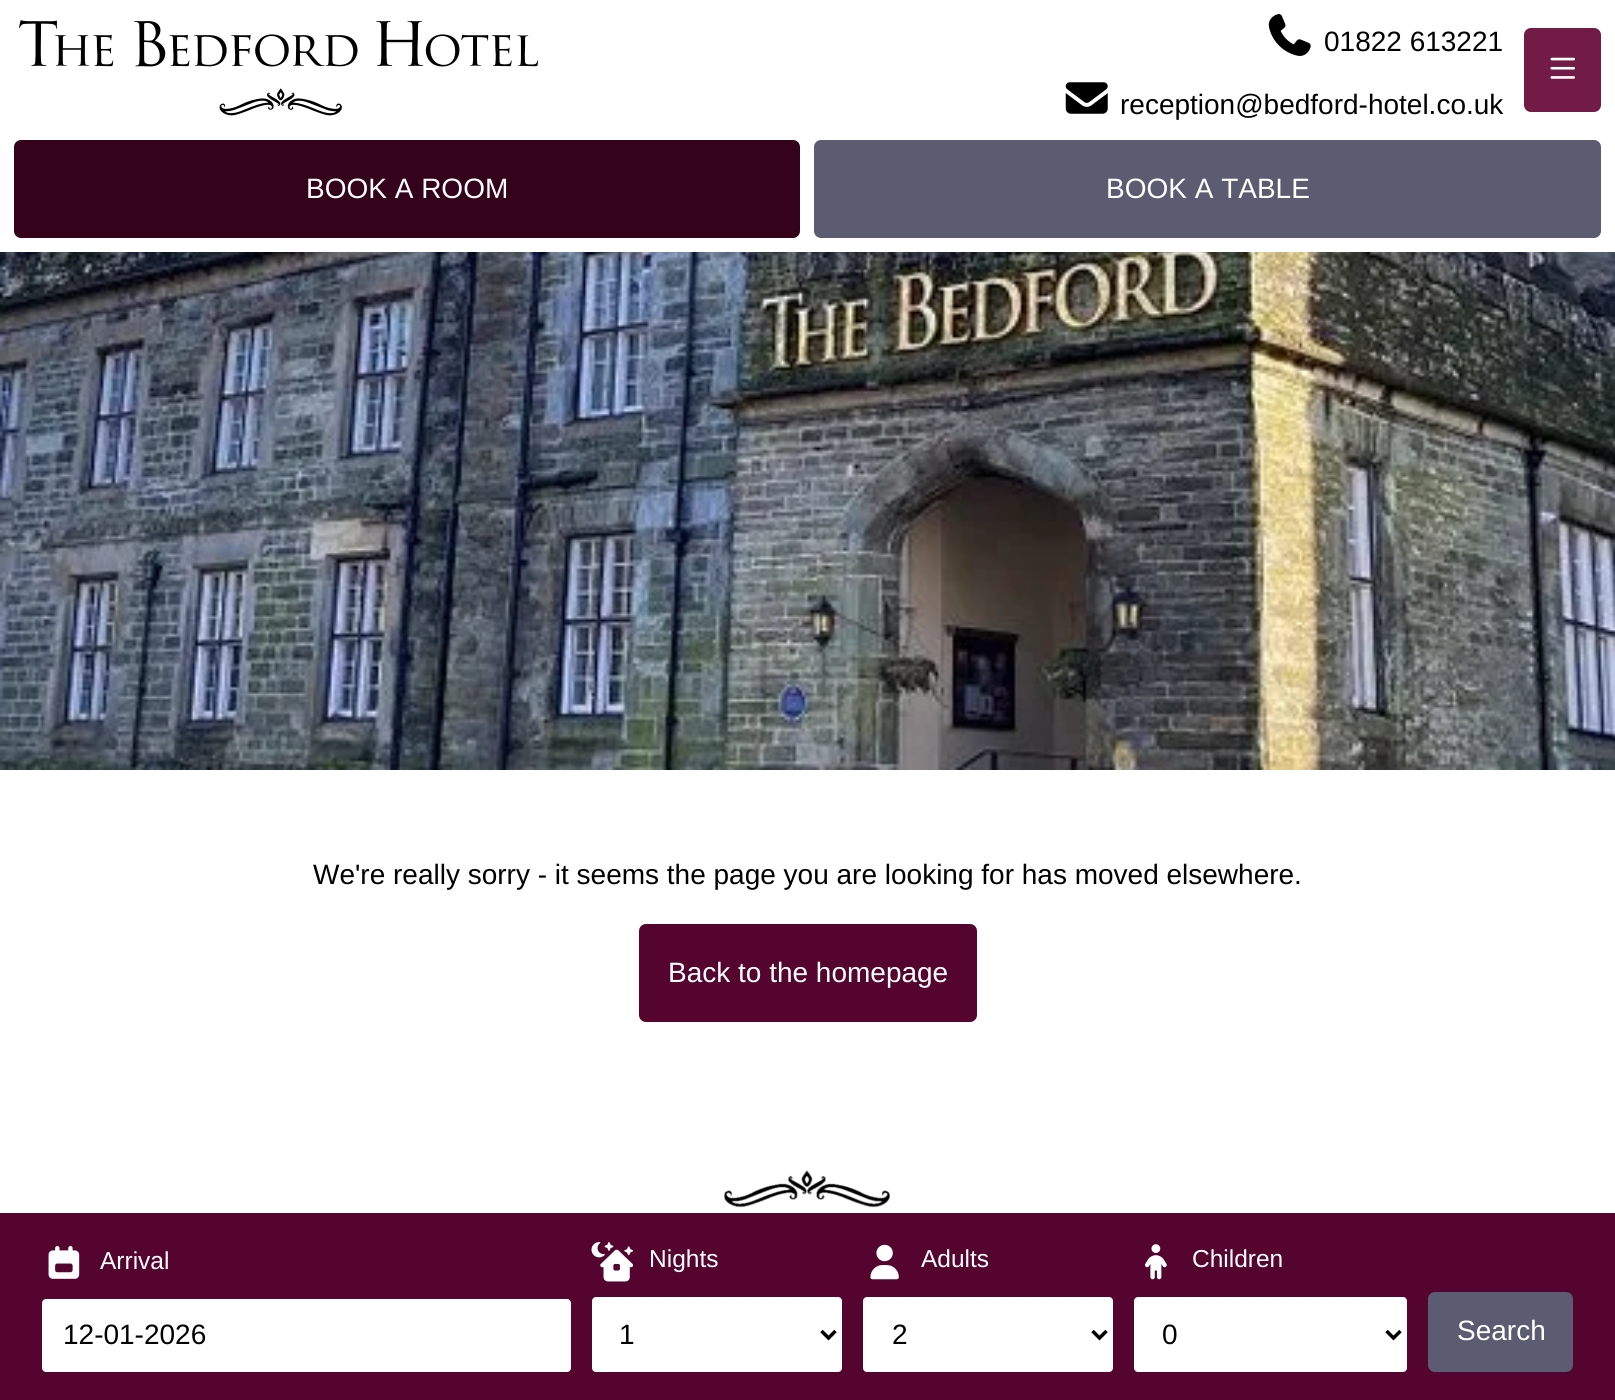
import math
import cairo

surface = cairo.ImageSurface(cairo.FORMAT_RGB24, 1615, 1400)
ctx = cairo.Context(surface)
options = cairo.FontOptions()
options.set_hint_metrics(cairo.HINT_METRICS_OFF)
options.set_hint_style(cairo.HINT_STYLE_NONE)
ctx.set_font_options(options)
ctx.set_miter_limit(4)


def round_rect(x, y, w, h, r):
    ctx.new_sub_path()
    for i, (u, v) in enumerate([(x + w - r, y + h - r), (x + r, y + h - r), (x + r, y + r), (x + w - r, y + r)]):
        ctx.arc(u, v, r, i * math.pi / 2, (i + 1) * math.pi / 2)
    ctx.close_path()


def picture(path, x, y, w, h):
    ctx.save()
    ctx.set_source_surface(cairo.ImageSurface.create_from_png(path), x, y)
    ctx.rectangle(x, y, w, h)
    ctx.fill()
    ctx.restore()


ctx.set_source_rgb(1, 1, 1)
ctx.paint()
picture("img1.png", 19, 20, 520, 96)
picture("img2.png", 1268, 14, 43, 42)
ctx.select_font_face("Liberation Sans")
ctx.set_font_size(28)
ctx.set_source_rgb(0, 0, 0)
ctx.move_to(1324, 51)
ctx.show_text("01822 613221")
picture("img3.png", 1065, 82, 43, 32)
ctx.move_to(1120, 114)
ctx.show_text("reception@bedford-hotel.co.uk")
ctx.set_source_rgb(0.447, 0.106, 0.278)
round_rect(1524, 28, 77, 84, 7)
ctx.fill()
picture("img4.png", 1550, 57, 25, 22)
ctx.set_source_rgb(0.204, 0.008, 0.106)
round_rect(14, 140, 786, 98, 7)
ctx.fill()
ctx.set_source_rgb(1, 1, 1)
ctx.move_to(306, 198)
ctx.show_text("BOOK A ROOM")
ctx.set_source_rgb(0.357, 0.361, 0.443)
round_rect(814, 140, 787, 98, 7)
ctx.fill()
ctx.set_source_rgb(1, 1, 1)
ctx.move_to(1106, 198)
ctx.show_text("BOOK A TABLE")
picture("img5.png", 0, 252, 1615, 518)
ctx.set_source_rgb(0, 0, 0)
ctx.move_to(313, 884)
ctx.show_text("We're really sorry - it seems the page you are looking for has moved elsewhere.")
ctx.set_source_rgb(0.329, 0.016, 0.18)
round_rect(639, 924, 338, 98, 7)
ctx.fill()
ctx.set_source_rgb(1, 1, 1)
ctx.move_to(668, 982)
ctx.show_text("Back to the homepage")
picture("img6.png", 724, 1170, 166, 38)
ctx.set_source_rgb(0.329, 0.016, 0.18)
ctx.rectangle(0, 1213, 1615, 187)
ctx.fill()
picture("img7.png", 48, 1246, 32, 33)
ctx.set_font_size(24.5)
ctx.set_source_rgb(1, 1, 1)
ctx.move_to(100, 1269)
ctx.show_text("Arrival")
round_rect(42, 1299, 529, 73, 4)
ctx.fill()
ctx.set_font_size(28)
ctx.set_source_rgb(0, 0, 0)
ctx.move_to(63, 1344)
ctx.show_text("12-01-2026")
picture("img8.png", 591, 1242, 42, 40)
ctx.set_font_size(24.5)
ctx.set_source_rgb(1, 1, 1)
ctx.move_to(649, 1267)
ctx.show_text("Nights")
round_rect(592, 1297, 250, 75, 4)
ctx.fill()
ctx.new_path()
ctx.move_to(821.5, 1331)
ctx.line_to(828.5, 1338)
ctx.line_to(835.5, 1331)
ctx.set_source_rgb(0, 0, 0)
ctx.set_line_width(3.5)
ctx.stroke()
ctx.set_font_size(28)
ctx.move_to(619, 1344)
ctx.show_text("1")
picture("img9.png", 870, 1244, 29, 36)
ctx.set_font_size(24.5)
ctx.set_source_rgb(1, 1, 1)
ctx.move_to(921, 1267)
ctx.show_text("Adults")
round_rect(863, 1297, 250, 75, 4)
ctx.fill()
ctx.new_path()
ctx.move_to(1092.5, 1331)
ctx.line_to(1099.5, 1338)
ctx.line_to(1106.5, 1331)
ctx.set_source_rgb(0, 0, 0)
ctx.stroke()
ctx.set_font_size(28)
ctx.move_to(892, 1344)
ctx.show_text("2")
picture("img10.png", 1145, 1244, 22, 36)
ctx.set_font_size(24.5)
ctx.set_source_rgb(1, 1, 1)
ctx.move_to(1192, 1267)
ctx.show_text("Children")
round_rect(1134, 1297, 273, 75, 4)
ctx.fill()
ctx.new_path()
ctx.move_to(1386.5, 1331)
ctx.line_to(1393.5, 1338)
ctx.line_to(1400.5, 1331)
ctx.set_source_rgb(0, 0, 0)
ctx.stroke()
ctx.set_font_size(28)
ctx.move_to(1162, 1344)
ctx.show_text("0")
ctx.set_source_rgb(0.357, 0.361, 0.443)
round_rect(1428, 1292, 145, 80, 7)
ctx.fill()
ctx.set_source_rgb(1, 1, 1)
ctx.move_to(1457, 1340)
ctx.show_text("Search")
surface.write_to_png("page.png")
